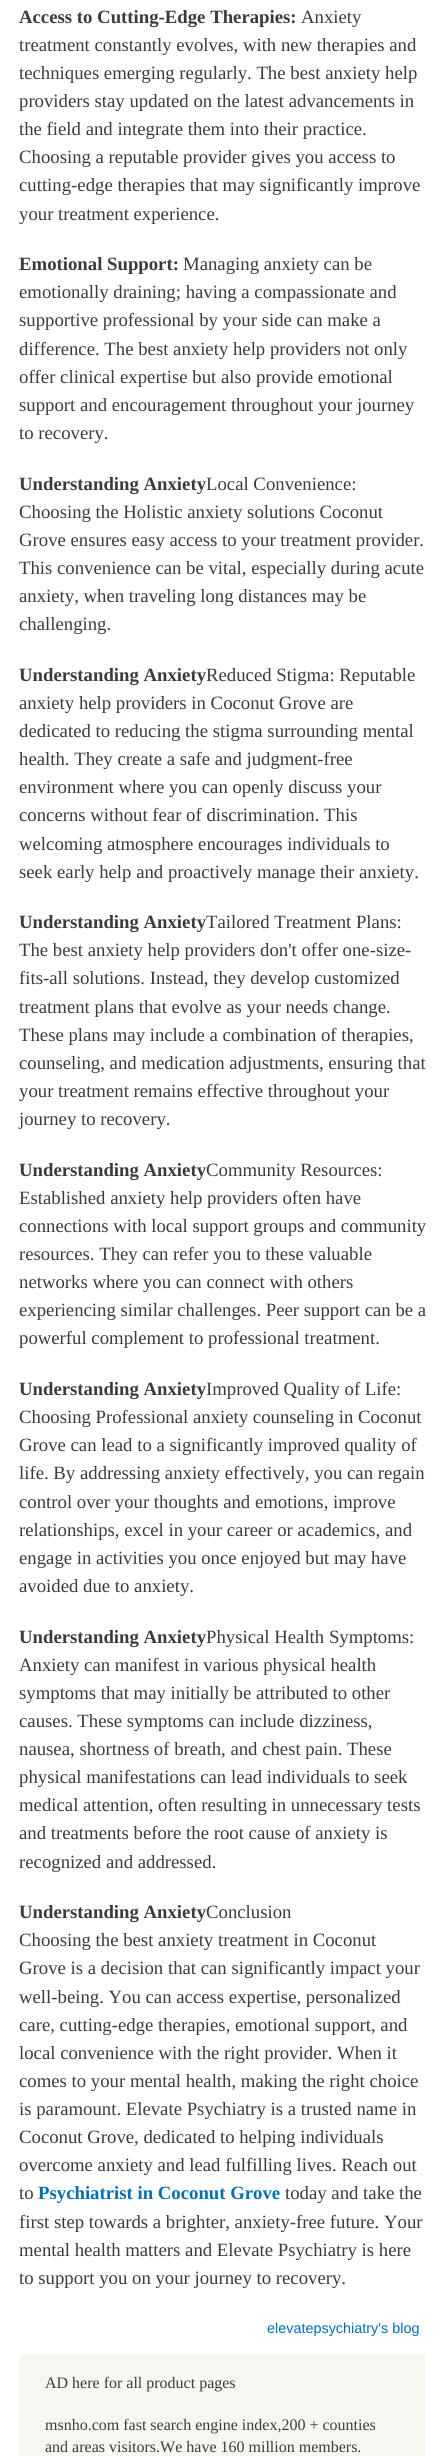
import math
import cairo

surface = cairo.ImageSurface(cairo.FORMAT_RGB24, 444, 2456)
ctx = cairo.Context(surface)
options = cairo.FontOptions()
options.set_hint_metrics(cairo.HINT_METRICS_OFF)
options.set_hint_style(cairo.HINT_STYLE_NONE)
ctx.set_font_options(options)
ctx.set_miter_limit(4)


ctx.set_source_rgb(1, 1, 1)
ctx.paint()
ctx.select_font_face("Liberation Serif", cairo.FONT_SLANT_NORMAL, cairo.FONT_WEIGHT_BOLD)
ctx.set_font_size(18.75)
ctx.set_source_rgb(0.231, 0.231, 0.231)
ctx.move_to(19, 23)
ctx.show_text("Access to Cutting-Edge Therapies:")
ctx.select_font_face("Liberation Serif")
ctx.move_to(301, 23)
ctx.show_text("Anxiety")
ctx.move_to(19, 51)
ctx.show_text("treatment constantly evolves, with new therapies and")
ctx.move_to(19, 79)
ctx.show_text("techniques emerging regularly. The best anxiety help")
ctx.move_to(19, 107)
ctx.show_text("providers stay updated on the latest advancements in")
ctx.move_to(19, 135)
ctx.show_text("the field and integrate them into their practice.")
ctx.move_to(19, 163)
ctx.show_text("Choosing a reputable provider gives you access to")
ctx.move_to(19, 191)
ctx.show_text("cutting-edge therapies that may significantly improve")
ctx.move_to(19, 220)
ctx.show_text("your treatment experience.")
ctx.select_font_face("Liberation Serif", cairo.FONT_SLANT_NORMAL, cairo.FONT_WEIGHT_BOLD)
ctx.move_to(19, 270)
ctx.show_text("Emotional Support:")
ctx.select_font_face("Liberation Serif")
ctx.move_to(183, 270)
ctx.show_text("Managing anxiety can be")
ctx.move_to(19, 298)
ctx.show_text("emotionally draining; having a compassionate and")
ctx.move_to(19, 326)
ctx.show_text("supportive professional by your side can make a")
ctx.move_to(19, 355)
ctx.show_text("difference. The best anxiety help providers not only")
ctx.move_to(19, 383)
ctx.show_text("offer clinical expertise but also provide emotional")
ctx.move_to(19, 411)
ctx.show_text("support and encouragement throughout your journey")
ctx.move_to(19, 439)
ctx.show_text("to recovery.")
ctx.select_font_face("Liberation Serif", cairo.FONT_SLANT_NORMAL, cairo.FONT_WEIGHT_BOLD)
ctx.move_to(19, 490)
ctx.show_text("Understanding Anxiety")
ctx.select_font_face("Liberation Serif")
ctx.move_to(206, 490)
ctx.show_text("Local Convenience:")
ctx.move_to(19, 518)
ctx.show_text("Choosing the Holistic anxiety solutions Coconut")
ctx.move_to(19, 546)
ctx.show_text("Grove ensures easy access to your treatment provider.")
ctx.move_to(19, 574)
ctx.show_text("This convenience can be vital, especially during acute")
ctx.move_to(19, 602)
ctx.show_text("anxiety, when traveling long distances may be")
ctx.move_to(19, 630)
ctx.show_text("challenging.")
ctx.select_font_face("Liberation Serif", cairo.FONT_SLANT_NORMAL, cairo.FONT_WEIGHT_BOLD)
ctx.move_to(19, 681)
ctx.show_text("Understanding Anxiety")
ctx.select_font_face("Liberation Serif")
ctx.move_to(206, 681)
ctx.show_text("Reduced Stigma: Reputable")
ctx.move_to(19, 709)
ctx.show_text("anxiety help providers in Coconut Grove are")
ctx.move_to(19, 737)
ctx.show_text("dedicated to reducing the stigma surrounding mental")
ctx.move_to(19, 765)
ctx.show_text("health. They create a safe and judgment-free")
ctx.move_to(19, 793)
ctx.show_text("environment where you can openly discuss your")
ctx.move_to(19, 821)
ctx.show_text("concerns without fear of discrimination. This")
ctx.move_to(19, 850)
ctx.show_text("welcoming atmosphere encourages individuals to")
ctx.move_to(19, 878)
ctx.show_text("seek early help and proactively manage their anxiety.")
ctx.select_font_face("Liberation Serif", cairo.FONT_SLANT_NORMAL, cairo.FONT_WEIGHT_BOLD)
ctx.move_to(19, 928)
ctx.show_text("Understanding Anxiety")
ctx.select_font_face("Liberation Serif")
ctx.move_to(206, 928)
ctx.show_text("Tailored Treatment Plans:")
ctx.move_to(19, 956)
ctx.show_text("The best anxiety help providers don't offer one-size-")
ctx.move_to(19, 984)
ctx.show_text("fits-all solutions. Instead, they develop customized")
ctx.move_to(19, 1013)
ctx.show_text("treatment plans that evolve as your needs change.")
ctx.move_to(19, 1041)
ctx.show_text("These plans may include a combination of therapies,")
ctx.move_to(19, 1069)
ctx.show_text("counseling, and medication adjustments, ensuring that")
ctx.move_to(19, 1097)
ctx.show_text("your treatment remains effective throughout your")
ctx.move_to(19, 1125)
ctx.show_text("journey to recovery.")
ctx.select_font_face("Liberation Serif", cairo.FONT_SLANT_NORMAL, cairo.FONT_WEIGHT_BOLD)
ctx.move_to(19, 1176)
ctx.show_text("Understanding Anxiety")
ctx.select_font_face("Liberation Serif")
ctx.move_to(206, 1176)
ctx.show_text("Community Resources:")
ctx.move_to(19, 1204)
ctx.show_text("Established anxiety help providers often have")
ctx.move_to(19, 1232)
ctx.show_text("connections with local support groups and community")
ctx.move_to(19, 1260)
ctx.show_text("resources. They can refer you to these valuable")
ctx.move_to(19, 1288)
ctx.show_text("networks where you can connect with others")
ctx.move_to(19, 1316)
ctx.show_text("experiencing similar challenges. Peer support can be a")
ctx.move_to(19, 1344)
ctx.show_text("powerful complement to professional treatment.")
ctx.select_font_face("Liberation Serif", cairo.FONT_SLANT_NORMAL, cairo.FONT_WEIGHT_BOLD)
ctx.move_to(19, 1395)
ctx.show_text("Understanding Anxiety")
ctx.select_font_face("Liberation Serif")
ctx.move_to(206, 1395)
ctx.show_text("Improved Quality of Life:")
ctx.move_to(19, 1423)
ctx.show_text("Choosing Professional anxiety counseling in Coconut")
ctx.move_to(19, 1451)
ctx.show_text("Grove can lead to a significantly improved quality of")
ctx.move_to(19, 1479)
ctx.show_text("life. By addressing anxiety effectively, you can regain")
ctx.move_to(19, 1508)
ctx.show_text("control over your thoughts and emotions, improve")
ctx.move_to(19, 1536)
ctx.show_text("relationships, excel in your career or academics, and")
ctx.move_to(19, 1564)
ctx.show_text("engage in activities you once enjoyed but may have")
ctx.move_to(19, 1592)
ctx.show_text("avoided due to anxiety.")
ctx.select_font_face("Liberation Serif", cairo.FONT_SLANT_NORMAL, cairo.FONT_WEIGHT_BOLD)
ctx.move_to(19, 1643)
ctx.show_text("Understanding Anxiety")
ctx.select_font_face("Liberation Serif")
ctx.move_to(206, 1643)
ctx.show_text("Physical Health Symptoms:")
ctx.move_to(19, 1671)
ctx.show_text("Anxiety can manifest in various physical health")
ctx.move_to(19, 1699)
ctx.show_text("symptoms that may initially be attributed to other")
ctx.move_to(19, 1727)
ctx.show_text("causes. These symptoms can include dizziness,")
ctx.move_to(19, 1755)
ctx.show_text("nausea, shortness of breath, and chest pain. These")
ctx.move_to(19, 1783)
ctx.show_text("physical manifestations can lead individuals to seek")
ctx.move_to(19, 1811)
ctx.show_text("medical attention, often resulting in unnecessary tests")
ctx.move_to(19, 1839)
ctx.show_text("and treatments before the root cause of anxiety is")
ctx.move_to(19, 1868)
ctx.show_text("recognized and addressed.")
ctx.select_font_face("Liberation Serif", cairo.FONT_SLANT_NORMAL, cairo.FONT_WEIGHT_BOLD)
ctx.move_to(19, 1918)
ctx.show_text("Understanding Anxiety")
ctx.select_font_face("Liberation Serif")
ctx.move_to(206, 1918)
ctx.show_text("Conclusion")
ctx.move_to(19, 1946)
ctx.show_text("Choosing the best anxiety treatment in Coconut")
ctx.move_to(19, 1974)
ctx.show_text("Grove is a decision that can significantly impact your")
ctx.move_to(19, 2003)
ctx.show_text("well-being. You can access expertise, personalized")
ctx.move_to(19, 2031)
ctx.show_text("care, cutting-edge therapies, emotional support, and")
ctx.move_to(19, 2059)
ctx.show_text("local convenience with the right provider. When it")
ctx.move_to(19, 2087)
ctx.show_text("comes to your mental health, making the right choice")
ctx.move_to(19, 2115)
ctx.show_text("is paramount. Elevate Psychiatry is a trusted name in")
ctx.move_to(19, 2143)
ctx.show_text("Coconut Grove, dedicated to helping individuals")
ctx.move_to(19, 2171)
ctx.show_text("overcome anxiety and lead fulfilling lives. Reach out")
ctx.move_to(19, 2199)
ctx.show_text("to")
ctx.select_font_face("Liberation Serif", cairo.FONT_SLANT_NORMAL, cairo.FONT_WEIGHT_BOLD)
ctx.set_source_rgb(0, 0.439, 0.702)
ctx.move_to(38, 2199)
ctx.show_text("Psychiatrist in Coconut Grove")
ctx.select_font_face("Liberation Serif")
ctx.set_source_rgb(0.231, 0.231, 0.231)
ctx.move_to(285, 2199)
ctx.show_text("today and take the")
ctx.move_to(19, 2228)
ctx.show_text("first step towards a brighter, anxiety-free future. Your")
ctx.move_to(19, 2256)
ctx.show_text("mental health matters and Elevate Psychiatry is here")
ctx.move_to(19, 2284)
ctx.show_text("to support you on your journey to recovery.")
ctx.select_font_face("Liberation Sans")
ctx.set_font_size(14.4)
ctx.set_source_rgb(0, 0.439, 0.702)
ctx.move_to(267, 2333)
ctx.show_text("elevatepsychiatry's blog")
ctx.set_source_rgb(0.965, 0.965, 0.949)
ctx.rectangle(19.5, 2354.5, 406, 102)
ctx.fill_preserve()
ctx.set_source_rgb(0.976, 0.976, 0.976)
ctx.set_line_width(1)
ctx.stroke()
ctx.select_font_face("Liberation Serif")
ctx.set_font_size(16)
ctx.set_source_rgb(0.231, 0.231, 0.231)
ctx.move_to(45, 2388)
ctx.show_text("AD here for all product pages")
ctx.move_to(45, 2430)
ctx.show_text("msnho.com fast search engine index,200 + counties")
ctx.move_to(45, 2452)
ctx.show_text("and areas visitors.We have 160 million members.")
surface.write_to_png("page.png")
